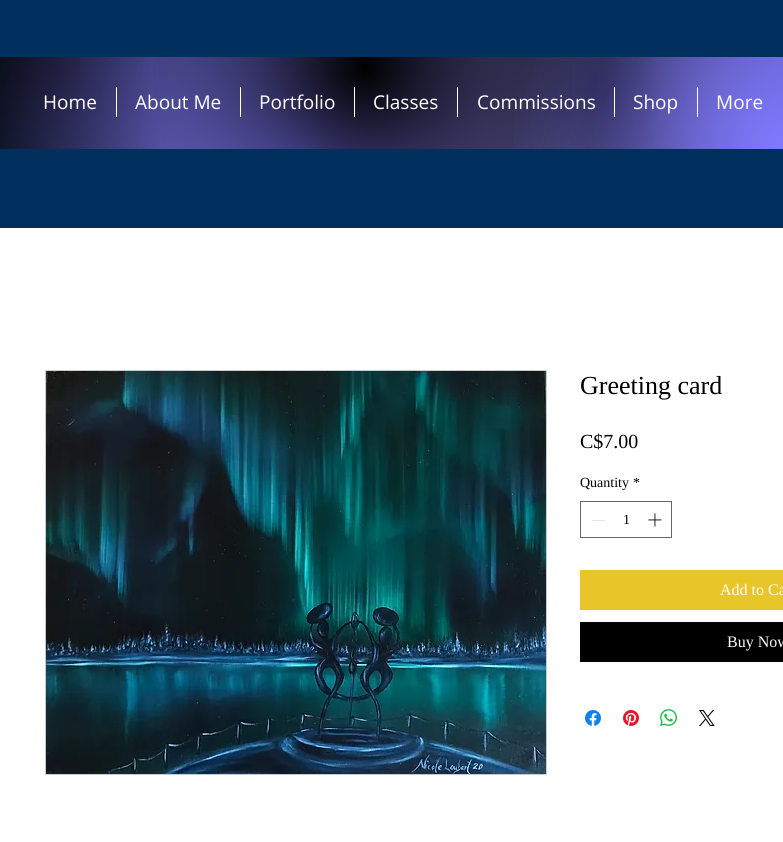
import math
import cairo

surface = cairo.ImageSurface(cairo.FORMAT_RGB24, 783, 842)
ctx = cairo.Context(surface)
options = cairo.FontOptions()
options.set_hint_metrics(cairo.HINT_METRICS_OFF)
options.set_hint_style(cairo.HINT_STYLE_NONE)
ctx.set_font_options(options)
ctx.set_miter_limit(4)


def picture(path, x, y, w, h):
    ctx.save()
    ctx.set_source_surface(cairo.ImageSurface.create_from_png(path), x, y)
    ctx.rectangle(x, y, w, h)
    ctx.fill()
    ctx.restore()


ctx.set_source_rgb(1, 1, 1)
ctx.paint()
ctx.set_source_rgb(0, 0.18, 0.365)
ctx.rectangle(0, 0, 783, 228)
ctx.fill()
gradient = cairo.RadialGradient(479, 103, 0, 479, 103, 503)
gradient.add_color_stop_rgba(0, 1, 1, 1, 1)
gradient.add_color_stop_rgba(1, 0, 0.18, 0.365, 1)
ctx.set_source(gradient)
ctx.rectangle(0, 57, 783, 92)
ctx.fill()
gradient = cairo.RadialGradient(605, 92, 0, 605, 92, 608)
gradient.add_color_stop_rgba(0, 0, 0, 0, 1)
gradient.add_color_stop_rgba(0.7, 0, 0, 0, 0)
ctx.set_source(gradient)
ctx.rectangle(189, 57, 594, 92)
ctx.fill()
gradient = cairo.RadialGradient(60, 69, 0, 60, 69, 923)
gradient.add_color_stop_rgba(0, 0, 0, 0, 1)
gradient.add_color_stop_rgba(0.7, 0, 0, 0, 0)
ctx.set_source(gradient)
ctx.rectangle(0, 57, 652, 92)
ctx.fill()
gradient = cairo.RadialGradient(303, 146, 0, 303, 146, 683)
gradient.add_color_stop_rgba(0, 0.502, 0.475, 1, 0.99)
gradient.add_color_stop_rgba(0.5, 0.502, 0.475, 1, 0)
ctx.set_source(gradient)
ctx.rectangle(0, 57, 637, 92)
ctx.fill()
gradient = cairo.RadialGradient(961, 78, 0, 961, 78, 964)
gradient.add_color_stop_rgba(0, 0, 0, 0, 1)
gradient.add_color_stop_rgba(0.4, 0, 0, 0, 0)
ctx.set_source(gradient)
ctx.rectangle(600, 57, 183, 92)
ctx.fill()
gradient = cairo.RadialGradient(365, 67, 0, 365, 67, 621)
gradient.add_color_stop_rgba(0, 0, 0, 0, 1)
gradient.add_color_stop_rgba(0.35, 0, 0, 0, 0)
ctx.set_source(gradient)
ctx.rectangle(153, 57, 419, 92)
ctx.fill()
gradient = cairo.RadialGradient(907, 147, 0, 907, 147, 911)
gradient.add_color_stop_rgba(0, 0.502, 0.475, 1, 1)
gradient.add_color_stop_rgba(0.35, 0.502, 0.475, 1, 0)
ctx.set_source(gradient)
ctx.rectangle(595, 57, 188, 92)
ctx.fill()
gradient = cairo.RadialGradient(784, 149, 0, 784, 149, 789)
gradient.add_color_stop_rgba(0, 0.502, 0.475, 1, 1)
gradient.add_color_stop_rgba(0.35, 0.502, 0.475, 1, 0)
ctx.set_source(gradient)
ctx.rectangle(514, 57, 269, 92)
ctx.fill()
ctx.select_font_face("Open Sans")
ctx.set_font_size(19)
ctx.set_source_rgb(1, 1, 1)
ctx.move_to(43, 109)
ctx.show_text("Home")
ctx.rectangle(116, 87, 1, 30)
ctx.fill()
ctx.move_to(135, 109)
ctx.show_text("About Me")
ctx.rectangle(240, 87, 1, 30)
ctx.fill()
ctx.move_to(259, 109)
ctx.show_text("Portfolio")
ctx.rectangle(354, 87, 1, 30)
ctx.fill()
ctx.move_to(373, 109)
ctx.show_text("Classes")
ctx.rectangle(457, 87, 1, 30)
ctx.fill()
ctx.move_to(477, 109)
ctx.show_text("Commissions")
ctx.rectangle(614, 87, 1, 30)
ctx.fill()
ctx.move_to(633, 109)
ctx.show_text("Shop")
ctx.rectangle(697, 87, 1, 30)
ctx.fill()
ctx.move_to(716, 109)
ctx.show_text("More")
ctx.rectangle(45.5, 370.5, 501, 404)
ctx.set_source_rgb(0.792, 0.792, 0.792)
ctx.set_line_width(1)
ctx.stroke()
picture("img1.png", 46, 371, 500, 403)
ctx.select_font_face("Liberation Serif")
ctx.set_font_size(26)
ctx.set_source_rgb(0, 0, 0)
ctx.move_to(580, 394)
ctx.show_text("Greeting card")
ctx.set_font_size(20)
ctx.move_to(580, 448)
ctx.show_text("C$7.00")
ctx.set_font_size(14)
ctx.move_to(580, 487)
ctx.show_text("Quantity")
ctx.move_to(633, 487)
ctx.show_text("*")
ctx.rectangle(580.5, 501.5, 91, 36)
ctx.set_source_rgb(0.4, 0.4, 0.4)
ctx.stroke()
ctx.set_source_rgb(0.89, 0.89, 0.89)
ctx.rectangle(592, 520, 13, 1)
ctx.fill()
ctx.set_source_rgb(0, 0, 0)
ctx.move_to(623, 524)
ctx.show_text("1")
picture("img2.png", 648, 513, 14, 14)
ctx.set_source_rgb(0.91, 0.773, 0.161)
ctx.rectangle(580, 570, 203, 40)
ctx.fill()
ctx.set_font_size(16)
ctx.set_source_rgb(1, 1, 1)
ctx.move_to(720, 595)
ctx.show_text("Add to Ca")
ctx.set_source_rgb(0, 0, 0)
ctx.rectangle(580, 622, 203, 40)
ctx.fill()
ctx.set_source_rgb(1, 1, 1)
ctx.move_to(727, 647)
ctx.show_text("Buy Now")
picture("img3.png", 585, 710, 16, 16)
picture("img4.png", 623, 710, 16, 16)
picture("img5.png", 660, 709, 17, 17)
picture("img6.png", 699, 710, 16, 16)
surface.write_to_png("page.png")
